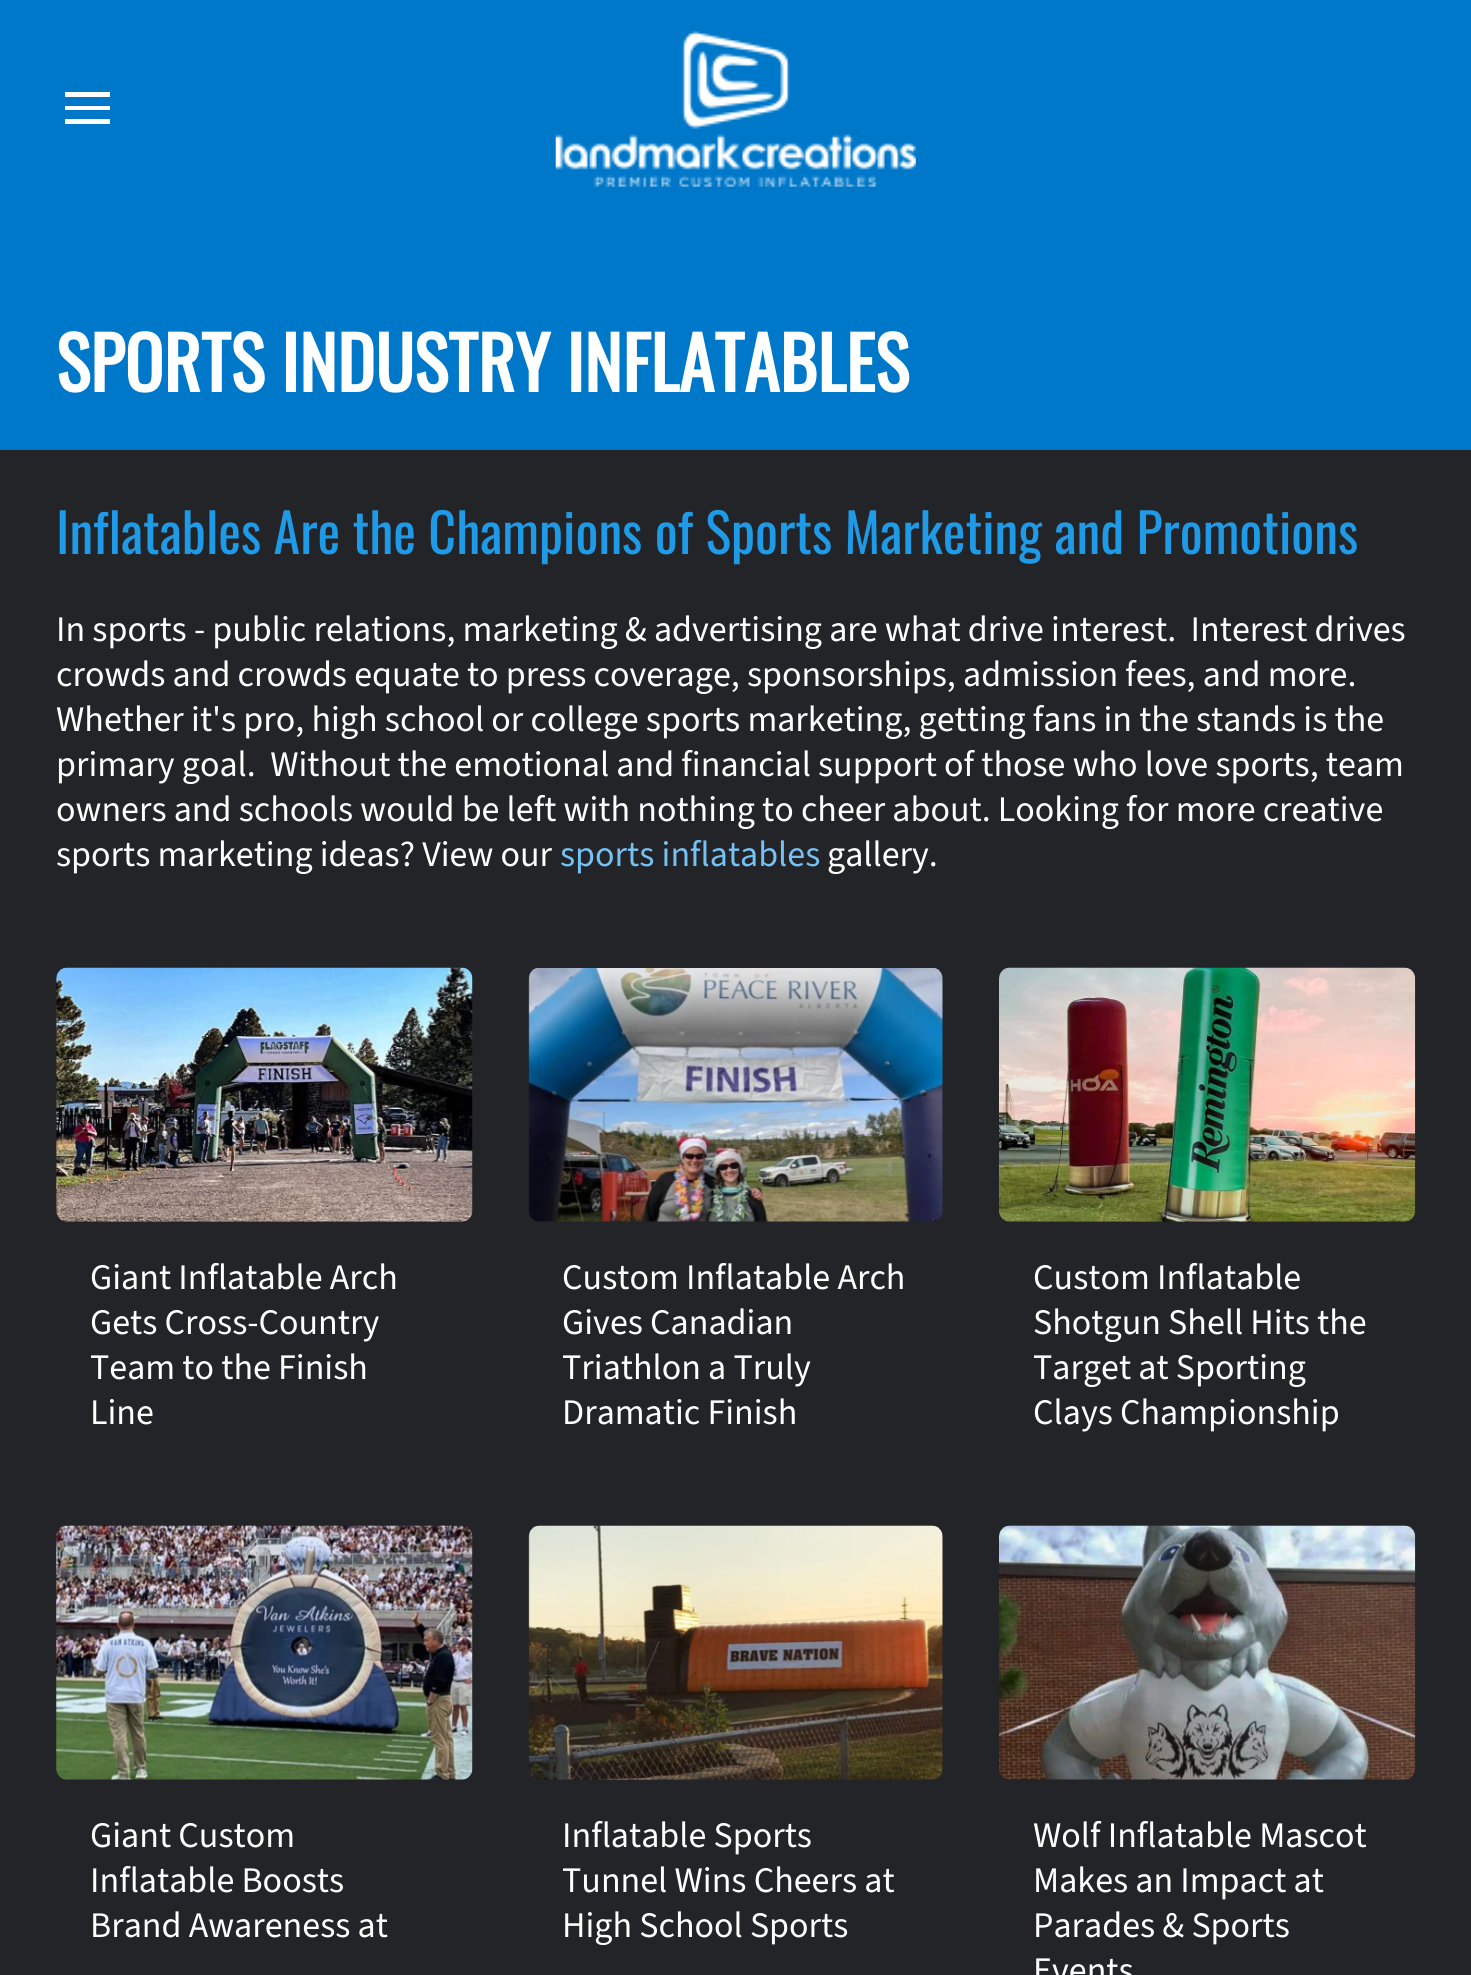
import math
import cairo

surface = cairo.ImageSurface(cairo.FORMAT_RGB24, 1471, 1975)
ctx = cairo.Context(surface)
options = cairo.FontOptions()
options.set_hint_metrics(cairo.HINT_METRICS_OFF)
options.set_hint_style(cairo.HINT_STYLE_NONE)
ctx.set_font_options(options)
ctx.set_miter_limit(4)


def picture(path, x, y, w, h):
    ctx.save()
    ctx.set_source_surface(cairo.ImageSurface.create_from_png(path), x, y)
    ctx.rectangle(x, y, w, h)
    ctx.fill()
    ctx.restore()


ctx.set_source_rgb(0.137, 0.141, 0.157)
ctx.paint()
ctx.set_source_rgb(0, 0.471, 0.788)
ctx.rectangle(0, 0, 1471, 450)
ctx.fill()
ctx.set_source_rgb(1, 1, 1)
ctx.rectangle(65, 92, 45, 5)
ctx.fill()
ctx.rectangle(65, 106, 45, 4)
ctx.fill()
ctx.rectangle(65, 119, 45, 5)
ctx.fill()
picture("img1.png", 555, 31, 361, 156)
ctx.select_font_face("Oswald", cairo.FONT_SLANT_NORMAL, cairo.FONT_WEIGHT_BOLD)
ctx.set_font_size(72)
ctx.move_to(56, 392)
ctx.show_text("SPORTS INDUSTRY INFLATABLES")
ctx.select_font_face("Oswald")
ctx.set_font_size(54)
ctx.set_source_rgb(0.122, 0.604, 0.906)
ctx.move_to(56, 554)
ctx.show_text("Inflatables Are the Champions of Sports Marketing and Promotions")
ctx.select_font_face("Source Sans 3 ExtraLight")
ctx.set_font_size(36)
ctx.set_source_rgb(1, 1, 1)
ctx.move_to(56, 641)
ctx.show_text("In sports - public relations, marketing & advertising are what drive interest.  Interest drives")
ctx.move_to(56, 686)
ctx.show_text("crowds and crowds equate to press coverage, sponsorships, admission fees, and more.")
ctx.move_to(56, 731)
ctx.show_text("Whether it's pro, high school or college sports marketing, getting fans in the stands is the")
ctx.move_to(56, 776)
ctx.show_text("primary goal.  Without the emotional and financial support of those who love sports, team")
ctx.move_to(56, 821)
ctx.show_text("owners and schools would be left with nothing to cheer about. Looking for more creative")
ctx.move_to(56, 866)
ctx.show_text("sports marketing ideas? View our")
ctx.set_source_rgb(0.459, 0.757, 0.953)
ctx.move_to(560, 866)
ctx.show_text("sports inflatables")
ctx.set_source_rgb(1, 1, 1)
ctx.move_to(827, 866)
ctx.show_text("gallery.")
picture("img2.png", 56, 967, 417, 255)
ctx.move_to(90, 1289)
ctx.show_text("Giant Inflatable Arch")
ctx.move_to(90, 1334)
ctx.show_text("Gets Cross-Country")
ctx.move_to(90, 1379)
ctx.show_text("Team to the Finish")
ctx.move_to(90, 1424)
ctx.show_text("Line")
picture("img3.png", 528, 968, 415, 254)
ctx.move_to(562, 1289)
ctx.show_text("Custom Inflatable Arch")
ctx.move_to(562, 1334)
ctx.show_text("Gives Canadian")
ctx.move_to(562, 1379)
ctx.show_text("Triathlon a Truly")
ctx.move_to(562, 1424)
ctx.show_text("Dramatic Finish")
picture("img4.png", 999, 967, 417, 255)
ctx.move_to(1033, 1289)
ctx.show_text("Custom Inflatable")
ctx.move_to(1033, 1334)
ctx.show_text("Shotgun Shell Hits the")
ctx.move_to(1033, 1379)
ctx.show_text("Target at Sporting")
ctx.move_to(1033, 1424)
ctx.show_text("Clays Championship")
picture("img5.png", 56, 1525, 417, 255)
ctx.move_to(90, 1847)
ctx.show_text("Giant Custom")
ctx.move_to(90, 1892)
ctx.show_text("Inflatable Boosts")
ctx.move_to(90, 1937)
ctx.show_text("Brand Awareness at")
picture("img6.png", 528, 1525, 415, 255)
ctx.move_to(562, 1847)
ctx.show_text("Inflatable Sports")
ctx.move_to(562, 1892)
ctx.show_text("Tunnel Wins Cheers at")
ctx.move_to(562, 1937)
ctx.show_text("High School Sports")
picture("img7.png", 999, 1525, 417, 255)
ctx.move_to(1033, 1847)
ctx.show_text("Wolf Inflatable Mascot")
ctx.move_to(1033, 1892)
ctx.show_text("Makes an Impact at")
ctx.move_to(1033, 1937)
ctx.show_text("Parades & Sports")
ctx.move_to(1033, 1982)
ctx.show_text("Events")
surface.write_to_png("page.png")
